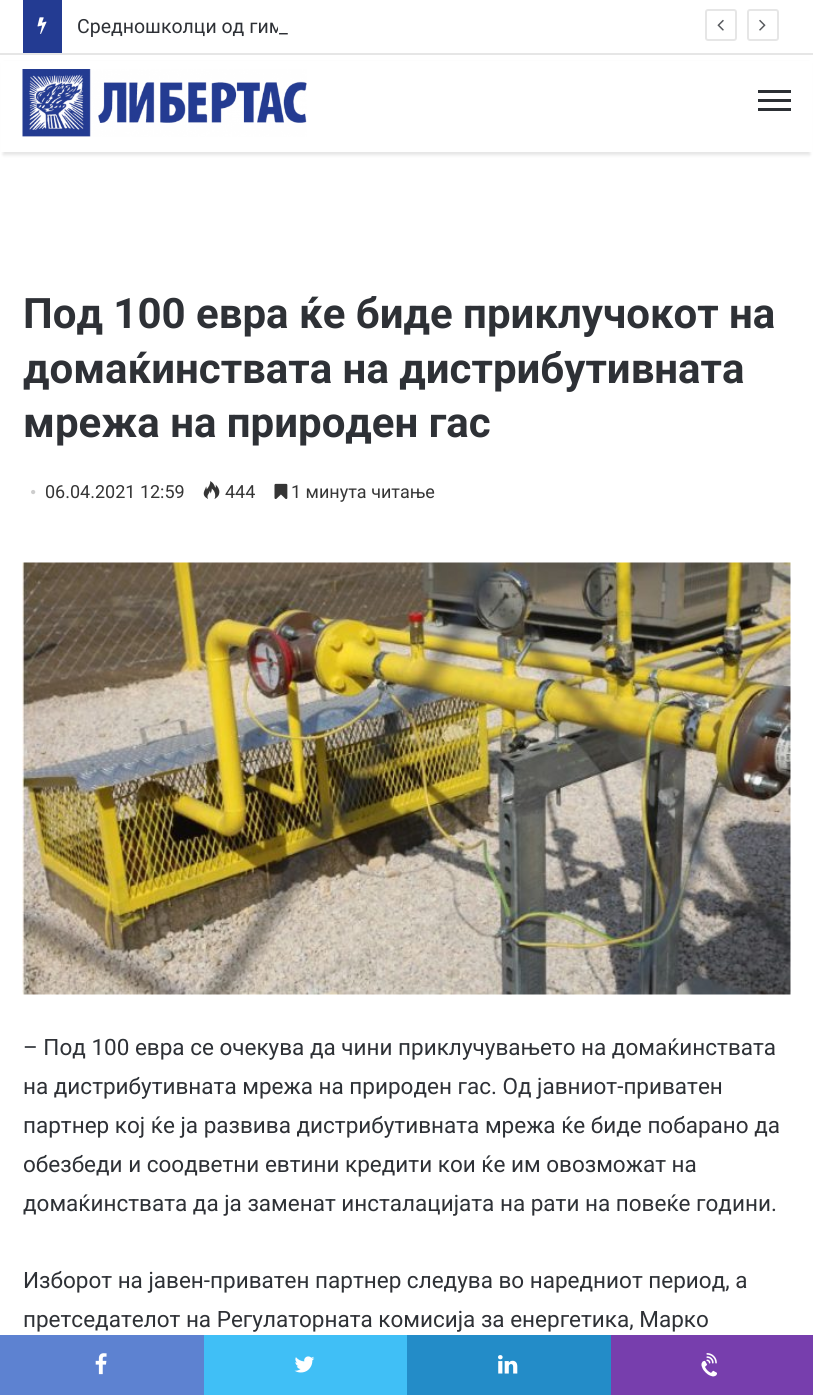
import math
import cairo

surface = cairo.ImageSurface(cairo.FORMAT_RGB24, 813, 1395)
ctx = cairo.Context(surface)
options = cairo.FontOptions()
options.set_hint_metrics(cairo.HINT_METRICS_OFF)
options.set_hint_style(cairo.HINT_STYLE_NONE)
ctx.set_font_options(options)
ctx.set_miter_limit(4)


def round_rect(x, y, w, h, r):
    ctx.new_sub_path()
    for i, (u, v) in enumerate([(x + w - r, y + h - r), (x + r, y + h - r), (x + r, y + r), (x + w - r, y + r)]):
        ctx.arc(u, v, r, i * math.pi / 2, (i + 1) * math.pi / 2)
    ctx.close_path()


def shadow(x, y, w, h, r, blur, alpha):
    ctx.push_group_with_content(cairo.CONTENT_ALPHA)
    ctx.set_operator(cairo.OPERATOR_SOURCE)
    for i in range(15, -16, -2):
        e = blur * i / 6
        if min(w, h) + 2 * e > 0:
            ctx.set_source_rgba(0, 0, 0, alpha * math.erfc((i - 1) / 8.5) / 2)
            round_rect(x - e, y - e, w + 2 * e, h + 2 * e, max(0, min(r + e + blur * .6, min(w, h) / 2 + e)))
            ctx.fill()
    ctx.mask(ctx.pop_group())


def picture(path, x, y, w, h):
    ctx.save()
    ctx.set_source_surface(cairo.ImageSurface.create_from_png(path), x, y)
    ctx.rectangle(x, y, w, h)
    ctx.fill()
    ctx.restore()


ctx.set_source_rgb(1, 1, 1)
ctx.paint()
ctx.set_source_rgb(0.902, 0.902, 0.902)
ctx.rectangle(0, 53, 813, 2)
ctx.fill()
ctx.set_source_rgb(0.137, 0.231, 0.573)
ctx.rectangle(23, 0, 39, 53)
ctx.fill()
picture("img1.png", 37, 17, 10, 17)
ctx.select_font_face("Roboto")
ctx.set_font_size(19.5)
ctx.set_source_rgb(0.18, 0.192, 0.212)
ctx.move_to(77, 33)
ctx.show_text("Средношколци од гим")
ctx.set_source_rgb(1, 1, 1)
ctx.rectangle(278, 22, 4, 11)
ctx.fill()
ctx.set_source_rgb(0.18, 0.192, 0.212)
ctx.move_to(279, 33)
ctx.show_text("_")
round_rect(706, 10, 30, 30, 2)
ctx.set_source_rgb(0.902, 0.902, 0.902)
ctx.stroke()
picture("img2.png", 717, 19, 7, 12)
round_rect(748, 10, 30, 30, 2)
ctx.stroke()
picture("img3.png", 759, 19, 7, 12)
ctx.set_source_rgb(0, 0, 0)
shadow(3, 63, 807, 92, 0, 1.5, 0.1)
ctx.set_source_rgb(1, 1, 1)
ctx.rectangle(1, 61, 811, 91)
ctx.fill()
picture("img4.png", 22, 69, 285, 68)
ctx.set_source_rgb(0.173, 0.184, 0.204)
ctx.rectangle(758, 99, 33, 3)
ctx.fill()
ctx.rectangle(758, 90, 33, 3)
ctx.fill()
ctx.rectangle(758, 108, 33, 3)
ctx.fill()
ctx.select_font_face("Roboto", cairo.FONT_SLANT_NORMAL, cairo.FONT_WEIGHT_BOLD)
ctx.set_font_size(42)
ctx.set_source_rgb(0.18, 0.192, 0.212)
ctx.move_to(23, 328)
ctx.show_text("Под 100 евра ќе биде приклучокот на")
ctx.move_to(23, 383)
ctx.show_text("домаќинствата на дистрибутивната")
ctx.move_to(23, 437)
ctx.show_text("мрежа на природен гас")
ctx.select_font_face("Liberation Serif")
ctx.set_font_size(18)
ctx.set_source_rgb(0.804, 0.804, 0.804)
ctx.move_to(30, 498)
ctx.show_text("•")
ctx.select_font_face("Roboto")
ctx.set_source_rgb(0.208, 0.208, 0.208)
ctx.move_to(45, 498)
ctx.show_text("06.04.2021 12:59")
picture("img5.png", 203, 481, 17, 18)
ctx.move_to(225, 498)
ctx.show_text("444")
picture("img6.png", 274, 483, 14, 16)
ctx.move_to(291, 498)
ctx.show_text("1 минута читање")
picture("img7.png", 22, 562, 769, 433)
ctx.set_font_size(22.5)
ctx.set_source_rgb(0.18, 0.192, 0.212)
ctx.move_to(23, 1055)
ctx.show_text("– Под 100 евра се очекува да чини приклучувањето на домаќинствата")
ctx.move_to(23, 1094)
ctx.show_text("на дистрибутивната мрежа на природен гас. Од јавниот-приватен")
ctx.move_to(23, 1133)
ctx.show_text("партнер кој ќе ја развива дистрибутивната мрежа ќе биде побарано да")
ctx.move_to(23, 1172)
ctx.show_text("обезбеди и соодветни евтини кредити кои ќе им овозможат на")
ctx.move_to(23, 1211)
ctx.show_text("домаќинствата да ја заменат инсталацијата на рати на повеќе години.")
ctx.move_to(23, 1288)
ctx.show_text("Изборот на јавен-приватен партнер следува во наредниот период, а")
ctx.move_to(23, 1327)
ctx.show_text("претседателот на Регулаторната комисија за енергетика, Марко")
ctx.set_source_rgb(0.365, 0.51, 0.82)
ctx.rectangle(0, 1335, 204, 60)
ctx.fill()
picture("img8.png", 95, 1353, 12, 22)
ctx.set_source_rgb(0.251, 0.749, 0.961)
ctx.rectangle(204, 1335, 203, 60)
ctx.fill()
picture("img9.png", 294, 1356, 21, 17)
ctx.set_source_rgb(0.137, 0.549, 0.784)
ctx.rectangle(407, 1335, 204, 60)
ctx.fill()
picture("img10.png", 498, 1355, 20, 19)
ctx.set_source_rgb(0.467, 0.243, 0.678)
ctx.rectangle(611, 1335, 202, 60)
ctx.fill()
picture("img11.png", 701, 1353, 16, 24)
surface.write_to_png("page.png")
